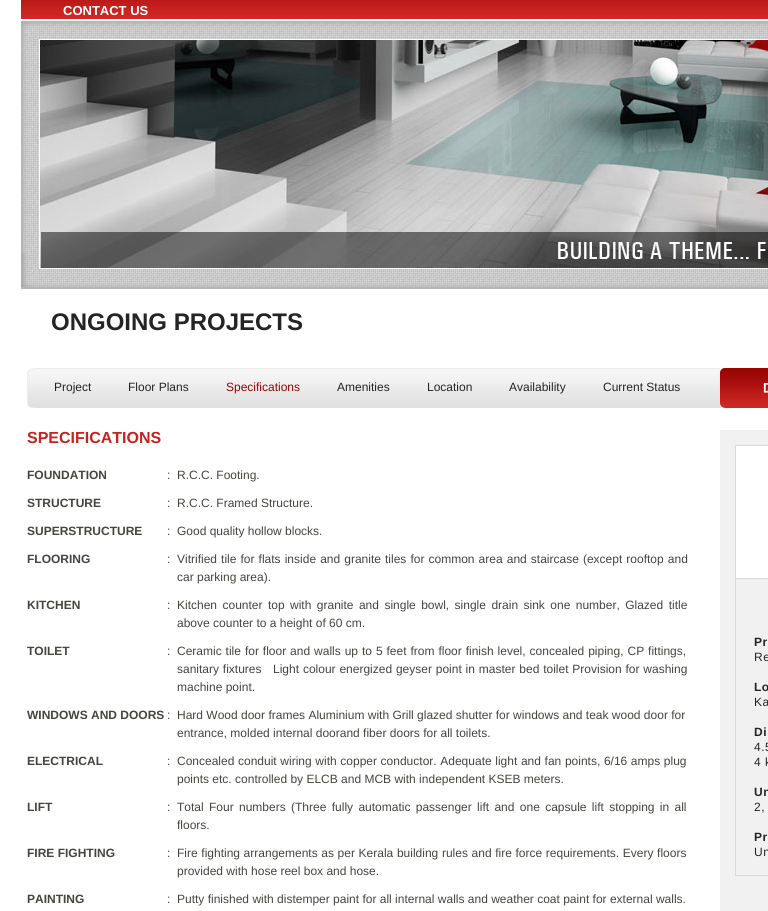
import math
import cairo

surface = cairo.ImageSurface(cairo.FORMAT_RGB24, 768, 911)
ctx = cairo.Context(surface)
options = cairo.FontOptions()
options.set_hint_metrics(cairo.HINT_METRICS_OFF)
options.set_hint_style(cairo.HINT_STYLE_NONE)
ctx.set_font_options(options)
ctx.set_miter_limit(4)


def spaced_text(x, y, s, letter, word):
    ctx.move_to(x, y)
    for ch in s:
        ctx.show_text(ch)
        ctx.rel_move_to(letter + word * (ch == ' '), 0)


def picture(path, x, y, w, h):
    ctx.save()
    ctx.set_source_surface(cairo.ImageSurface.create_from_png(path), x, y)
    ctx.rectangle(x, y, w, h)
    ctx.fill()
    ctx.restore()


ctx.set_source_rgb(1, 1, 1)
ctx.paint()
picture("img1.png", 21, 0, 747, 19)
ctx.select_font_face("Liberation Sans", cairo.FONT_SLANT_NORMAL, cairo.FONT_WEIGHT_BOLD)
ctx.set_font_size(13)
ctx.set_source_rgb(1, 1, 1)
ctx.move_to(63, 15)
ctx.show_text("CONTACT US")
picture("img2.png", 21, 21, 747, 268)
picture("img3.png", 21, 21, 18, 266)
picture("img4.png", 39, 39, 729, 230)
ctx.set_font_size(24)
ctx.set_source_rgb(0.145, 0.141, 0.141)
ctx.move_to(51, 330)
ctx.show_text("ONGOING PROJECTS")
picture("img5.png", 27, 368, 8, 40)
picture("img6.png", 35, 368, 685, 40)
ctx.select_font_face("Liberation Sans")
ctx.set_font_size(12)
ctx.move_to(54, 391)
ctx.show_text("Project")
ctx.move_to(128, 391)
ctx.show_text("Floor Plans")
ctx.set_source_rgb(0.592, 0.016, 0.004)
ctx.move_to(226, 391)
ctx.show_text("Specifications")
ctx.set_source_rgb(0.145, 0.141, 0.141)
ctx.move_to(337, 391)
ctx.show_text("Amenities")
ctx.move_to(427, 391)
ctx.show_text("Location")
ctx.move_to(509, 391)
ctx.show_text("Availability")
ctx.move_to(603, 391)
ctx.show_text("Current Status")
picture("img7.png", 720, 368, 48, 40)
ctx.set_source_rgb(0.945, 0.945, 0.945)
ctx.rectangle(720, 430, 48, 481)
ctx.fill()
ctx.select_font_face("Liberation Sans", cairo.FONT_SLANT_NORMAL, cairo.FONT_WEIGHT_BOLD)
ctx.set_font_size(16)
ctx.set_source_rgb(0.776, 0.133, 0.122)
ctx.move_to(27, 443)
ctx.show_text("SPECIFICATIONS")
ctx.set_font_size(12)
ctx.set_source_rgb(0.271, 0.267, 0.247)
ctx.move_to(27, 479)
ctx.show_text("FOUNDATION")
ctx.select_font_face("Liberation Sans")
ctx.move_to(167, 479)
ctx.show_text(":")
ctx.move_to(177, 479)
ctx.show_text("R.C.C. Footing.")
ctx.select_font_face("Liberation Sans", cairo.FONT_SLANT_NORMAL, cairo.FONT_WEIGHT_BOLD)
ctx.move_to(27, 507)
ctx.show_text("STRUCTURE")
ctx.select_font_face("Liberation Sans")
ctx.move_to(167, 507)
ctx.show_text(":")
ctx.move_to(177, 507)
ctx.show_text("R.C.C. Framed Structure.")
ctx.select_font_face("Liberation Sans", cairo.FONT_SLANT_NORMAL, cairo.FONT_WEIGHT_BOLD)
ctx.move_to(27, 535)
ctx.show_text("SUPERSTRUCTURE")
ctx.select_font_face("Liberation Sans")
ctx.move_to(167, 535)
ctx.show_text(":")
ctx.move_to(177, 535)
ctx.show_text("Good quality hollow blocks.")
ctx.select_font_face("Liberation Sans", cairo.FONT_SLANT_NORMAL, cairo.FONT_WEIGHT_BOLD)
ctx.move_to(27, 563)
ctx.show_text("FLOORING")
ctx.select_font_face("Liberation Sans")
ctx.move_to(167, 563)
ctx.show_text(":")
spaced_text(177, 563, "Vitrified tile for flats inside and granite tiles for common area and staircase (except rooftop and", 0, 0.75)
ctx.move_to(177, 581)
ctx.show_text("car parking area).")
ctx.select_font_face("Liberation Sans", cairo.FONT_SLANT_NORMAL, cairo.FONT_WEIGHT_BOLD)
ctx.move_to(27, 609)
ctx.show_text("KITCHEN")
ctx.select_font_face("Liberation Sans")
ctx.move_to(167, 609)
ctx.show_text(":")
spaced_text(177, 609, "Kitchen counter top with granite and single bowl, single drain sink one number, Glazed title", 0, 2.1)
ctx.move_to(177, 627)
ctx.show_text("above counter to a height of 60 cm.")
ctx.select_font_face("Liberation Sans", cairo.FONT_SLANT_NORMAL, cairo.FONT_WEIGHT_BOLD)
ctx.move_to(27, 655)
ctx.show_text("TOILET")
ctx.select_font_face("Liberation Sans")
ctx.move_to(167, 655)
ctx.show_text(":")
spaced_text(177, 655, "Ceramic tile for floor and walls up to 5 feet from floor finish level, concealed piping, CP fittings,", 0, 0.6)
spaced_text(177, 673, "sanitary fixtures   Light colour energized geyser point in master bed toilet Provision for washing", 0, 0.5)
ctx.move_to(177, 691)
ctx.show_text("machine point.")
ctx.select_font_face("Liberation Sans", cairo.FONT_SLANT_NORMAL, cairo.FONT_WEIGHT_BOLD)
ctx.move_to(27, 719)
ctx.show_text("WINDOWS AND DOORS")
ctx.select_font_face("Liberation Sans")
ctx.move_to(167, 719)
ctx.show_text(":")
ctx.move_to(177, 719)
ctx.show_text("Hard Wood door frames Aluminium with Grill glazed shutter for windows and teak wood door for")
ctx.move_to(177, 737)
ctx.show_text("entrance, molded internal doorand fiber doors for all toilets.")
ctx.select_font_face("Liberation Sans", cairo.FONT_SLANT_NORMAL, cairo.FONT_WEIGHT_BOLD)
ctx.move_to(27, 765)
ctx.show_text("ELECTRICAL")
ctx.select_font_face("Liberation Sans")
ctx.move_to(167, 765)
ctx.show_text(":")
spaced_text(177, 765, "Concealed conduit wiring with copper conductor. Adequate light and fan points, 6/16 amps plug", 0, 0.3)
ctx.move_to(177, 783)
ctx.show_text("points etc. controlled by ELCB and MCB with independent KSEB meters.")
ctx.select_font_face("Liberation Sans", cairo.FONT_SLANT_NORMAL, cairo.FONT_WEIGHT_BOLD)
ctx.move_to(27, 811)
ctx.show_text("LIFT")
ctx.select_font_face("Liberation Sans")
ctx.move_to(167, 811)
ctx.show_text(":")
spaced_text(177, 811, "Total Four numbers (Three fully automatic passenger lift and one capsule lift stopping in all", 0, 2)
ctx.move_to(177, 829)
ctx.show_text("floors.")
ctx.select_font_face("Liberation Sans", cairo.FONT_SLANT_NORMAL, cairo.FONT_WEIGHT_BOLD)
ctx.move_to(27, 857)
ctx.show_text("FIRE FIGHTING")
ctx.select_font_face("Liberation Sans")
ctx.move_to(167, 857)
ctx.show_text(":")
spaced_text(177, 857, "Fire fighting arrangements as per Kerala building rules and fire force requirements. Every floors", 0, 0.3)
ctx.move_to(177, 875)
ctx.show_text("provided with hose reel box and hose.")
ctx.select_font_face("Liberation Sans", cairo.FONT_SLANT_NORMAL, cairo.FONT_WEIGHT_BOLD)
ctx.move_to(27, 903)
ctx.show_text("PAINTING")
ctx.select_font_face("Liberation Sans")
ctx.move_to(167, 903)
ctx.show_text(":")
ctx.move_to(177, 903)
ctx.show_text("Putty finished with distemper paint for all internal walls and weather coat paint for external walls.")
ctx.rectangle(735.5, 445.5, 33, 430)
ctx.set_source_rgb(0.847, 0.847, 0.847)
ctx.set_line_width(1)
ctx.stroke()
ctx.rectangle(736, 578, 32, 1)
ctx.fill()
ctx.set_source_rgb(1, 1, 1)
ctx.rectangle(736, 446, 32, 132)
ctx.fill()
ctx.select_font_face("Liberation Sans", cairo.FONT_SLANT_NORMAL, cairo.FONT_WEIGHT_BOLD)
ctx.set_source_rgb(0.145, 0.141, 0.141)
spaced_text(754, 646, "Pr", 0.5, 0)
ctx.select_font_face("Liberation Sans")
spaced_text(754, 661, "Re", 0.5, 0)
ctx.select_font_face("Liberation Sans", cairo.FONT_SLANT_NORMAL, cairo.FONT_WEIGHT_BOLD)
spaced_text(754, 691, "Lo", 0.5, 0)
ctx.select_font_face("Liberation Sans")
spaced_text(754, 706, "Ka", 0.5, 0)
ctx.select_font_face("Liberation Sans", cairo.FONT_SLANT_NORMAL, cairo.FONT_WEIGHT_BOLD)
spaced_text(754, 736, "Di", 0.5, 0)
ctx.select_font_face("Liberation Sans")
spaced_text(754, 751, "4.5", 0.5, 0)
spaced_text(754, 766, "4 k", 0.5, 0)
ctx.select_font_face("Liberation Sans", cairo.FONT_SLANT_NORMAL, cairo.FONT_WEIGHT_BOLD)
spaced_text(754, 796, "Un", 0.5, 0)
ctx.select_font_face("Liberation Sans")
spaced_text(754, 811, "2,", 0.5, 0)
ctx.select_font_face("Liberation Sans", cairo.FONT_SLANT_NORMAL, cairo.FONT_WEIGHT_BOLD)
spaced_text(754, 841, "Pr", 0.5, 0)
ctx.select_font_face("Liberation Sans")
spaced_text(754, 856, "Un", 0.5, 0)
surface.write_to_png("page.png")
